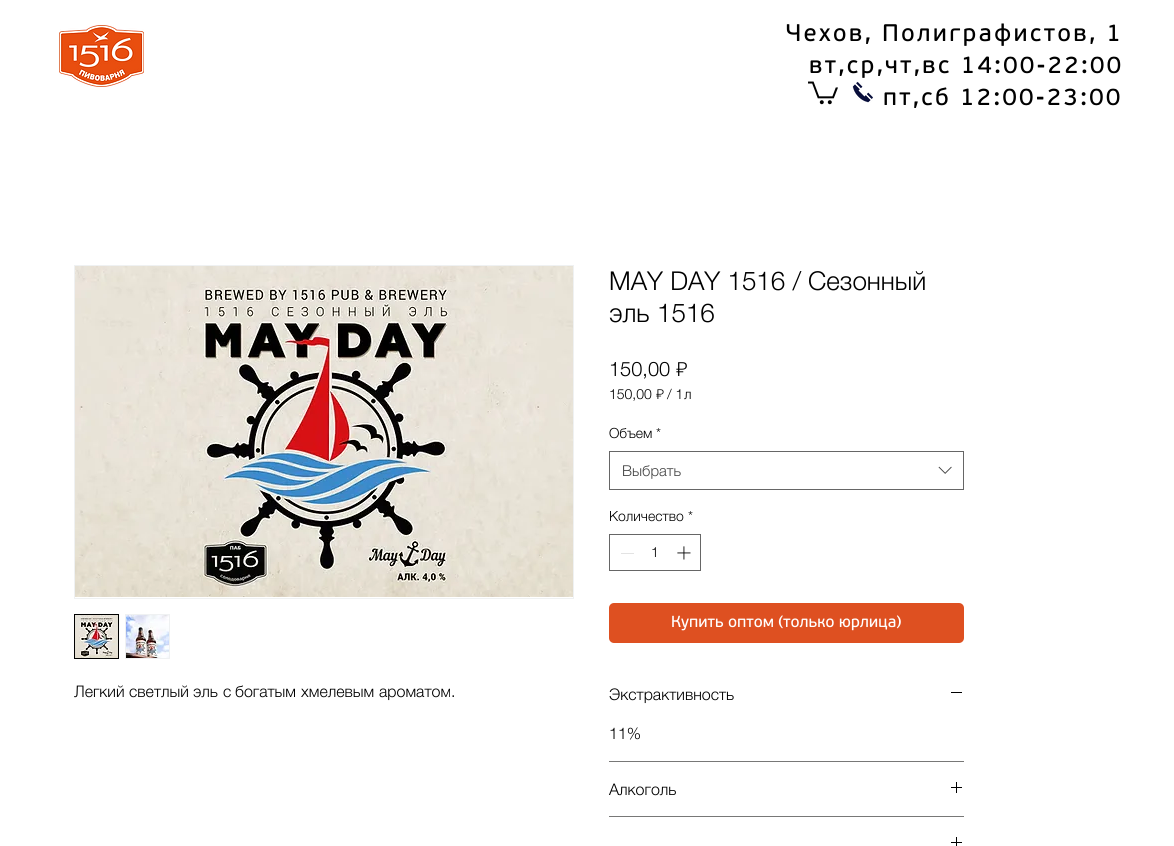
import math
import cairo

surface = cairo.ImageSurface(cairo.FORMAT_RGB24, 1174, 846)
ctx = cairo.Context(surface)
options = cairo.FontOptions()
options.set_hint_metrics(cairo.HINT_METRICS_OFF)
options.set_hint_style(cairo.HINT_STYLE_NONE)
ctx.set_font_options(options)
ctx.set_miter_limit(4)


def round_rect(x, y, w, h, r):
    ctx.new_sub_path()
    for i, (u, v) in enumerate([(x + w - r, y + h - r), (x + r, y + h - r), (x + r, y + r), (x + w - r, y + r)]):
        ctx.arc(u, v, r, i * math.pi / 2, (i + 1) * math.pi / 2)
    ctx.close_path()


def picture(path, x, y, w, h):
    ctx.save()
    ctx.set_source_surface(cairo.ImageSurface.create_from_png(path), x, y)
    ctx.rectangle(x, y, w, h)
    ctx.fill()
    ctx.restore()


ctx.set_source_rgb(1, 1, 1)
ctx.paint()
picture("img1.png", 59, 25, 85, 62)
picture("img2.png", 786, 23, 333, 23)
picture("img3.png", 810, 56, 311, 22)
picture("img4.png", 884, 87, 236, 21)
picture("img5.png", 808, 81, 30, 24)
picture("img6.png", 852, 81, 21, 22)
ctx.rectangle(74.5, 265.5, 499, 333)
ctx.set_source_rgb(0.937, 0.945, 0.949)
ctx.set_line_width(1)
ctx.stroke()
picture("img7.png", 75, 266, 498, 331)
ctx.rectangle(74.5, 614.5, 44, 44)
ctx.set_source_rgb(0, 0, 0)
ctx.stroke()
picture("img8.png", 75, 615, 43, 43)
ctx.set_source_rgb(0.937, 0.945, 0.949)
ctx.rectangle(125, 614, 45, 45)
ctx.fill()
picture("img9.png", 126, 615, 43, 43)
ctx.select_font_face("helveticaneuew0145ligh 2 Light")
ctx.set_font_size(16)
ctx.set_source_rgb(0, 0, 0)
ctx.move_to(74, 697)
ctx.show_text("Легкий")
ctx.move_to(129, 697)
ctx.show_text("светлый")
ctx.move_to(193, 697)
ctx.show_text("эль")
ctx.move_to(223, 697)
ctx.show_text("с")
ctx.move_to(235, 697)
ctx.show_text("богатым")
ctx.move_to(301, 697)
ctx.show_text("хмелевым")
ctx.move_to(379, 697)
ctx.show_text("ароматом")
ctx.select_font_face("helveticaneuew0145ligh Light")
ctx.move_to(451, 697)
ctx.show_text(".")
ctx.set_font_size(26)
ctx.move_to(609, 290)
ctx.show_text("MAY DAY 1516 /")
ctx.select_font_face("helveticaneuew0145ligh 2 Light")
ctx.move_to(808, 290)
ctx.show_text("Сезонный")
ctx.move_to(609, 322)
ctx.show_text("эль")
ctx.select_font_face("helveticaneuew0145ligh Light")
ctx.move_to(657, 322)
ctx.show_text("1516")
ctx.set_font_size(20)
ctx.move_to(609, 376)
ctx.show_text("150,00")
ctx.select_font_face("helveticaneuew0145ligh 2 Light")
ctx.move_to(676, 376)
ctx.show_text("₽")
ctx.select_font_face("helveticaneuew0145ligh Light")
ctx.set_font_size(14)
ctx.move_to(609, 399)
ctx.show_text("150,00")
ctx.select_font_face("helveticaneuew0145ligh 2 Light")
ctx.move_to(656, 399)
ctx.show_text("₽")
ctx.select_font_face("helveticaneuew0145ligh Light")
ctx.move_to(667, 399)
ctx.show_text("/ 1")
ctx.select_font_face("helveticaneuew0145ligh 2 Light")
ctx.move_to(684, 399)
ctx.show_text("л")
ctx.move_to(609, 438)
ctx.show_text("Объем")
ctx.select_font_face("helveticaneuew0145ligh Light")
ctx.move_to(656, 438)
ctx.show_text("*")
ctx.rectangle(609.5, 451.5, 354, 38)
ctx.set_source_rgb(0.4, 0.4, 0.4)
ctx.stroke()
ctx.select_font_face("helveticaneuew0145ligh 2 Light")
ctx.set_font_size(15)
ctx.set_source_rgb(0.267, 0.267, 0.267)
ctx.move_to(622, 476)
ctx.show_text("Выбрать")
picture("img10.png", 938, 466, 14, 8)
ctx.set_font_size(14)
ctx.set_source_rgb(0, 0, 0)
ctx.move_to(609, 521)
ctx.show_text("Количество")
ctx.select_font_face("helveticaneuew0145ligh Light")
ctx.move_to(688, 521)
ctx.show_text("*")
ctx.rectangle(609.5, 534.5, 91, 36)
ctx.set_source_rgb(0.4, 0.4, 0.4)
ctx.stroke()
ctx.set_source_rgb(0.89, 0.89, 0.89)
ctx.rectangle(621, 553, 13, 1)
ctx.fill()
ctx.set_source_rgb(0, 0, 0)
ctx.move_to(651, 557)
ctx.show_text("1")
picture("img11.png", 677, 546, 14, 14)
ctx.set_source_rgb(0.871, 0.314, 0.129)
round_rect(609, 603, 355, 40, 5)
ctx.fill()
picture("img12.png", 672, 615, 229, 16)
ctx.set_source_rgb(0.471, 0.471, 0.467)
ctx.rectangle(609, 761, 355, 1)
ctx.fill()
ctx.select_font_face("helveticaneuew0145ligh 2 Light")
ctx.set_font_size(16)
ctx.set_source_rgb(0, 0, 0)
ctx.move_to(609, 700)
ctx.show_text("Экстрактивность")
ctx.rectangle(951, 692, 11, 1)
ctx.fill()
ctx.select_font_face("helveticaneuew0145ligh Light")
ctx.move_to(609, 739)
ctx.show_text("11%")
ctx.set_source_rgb(0.471, 0.471, 0.467)
ctx.rectangle(609, 816, 355, 1)
ctx.fill()
ctx.select_font_face("helveticaneuew0145ligh 2 Light")
ctx.set_source_rgb(0, 0, 0)
ctx.move_to(609, 795)
ctx.show_text("Алкоголь")
picture("img13.png", 951, 782, 11, 11)
picture("img14.png", 951, 837, 11, 9)
surface.write_to_png("page.png")
